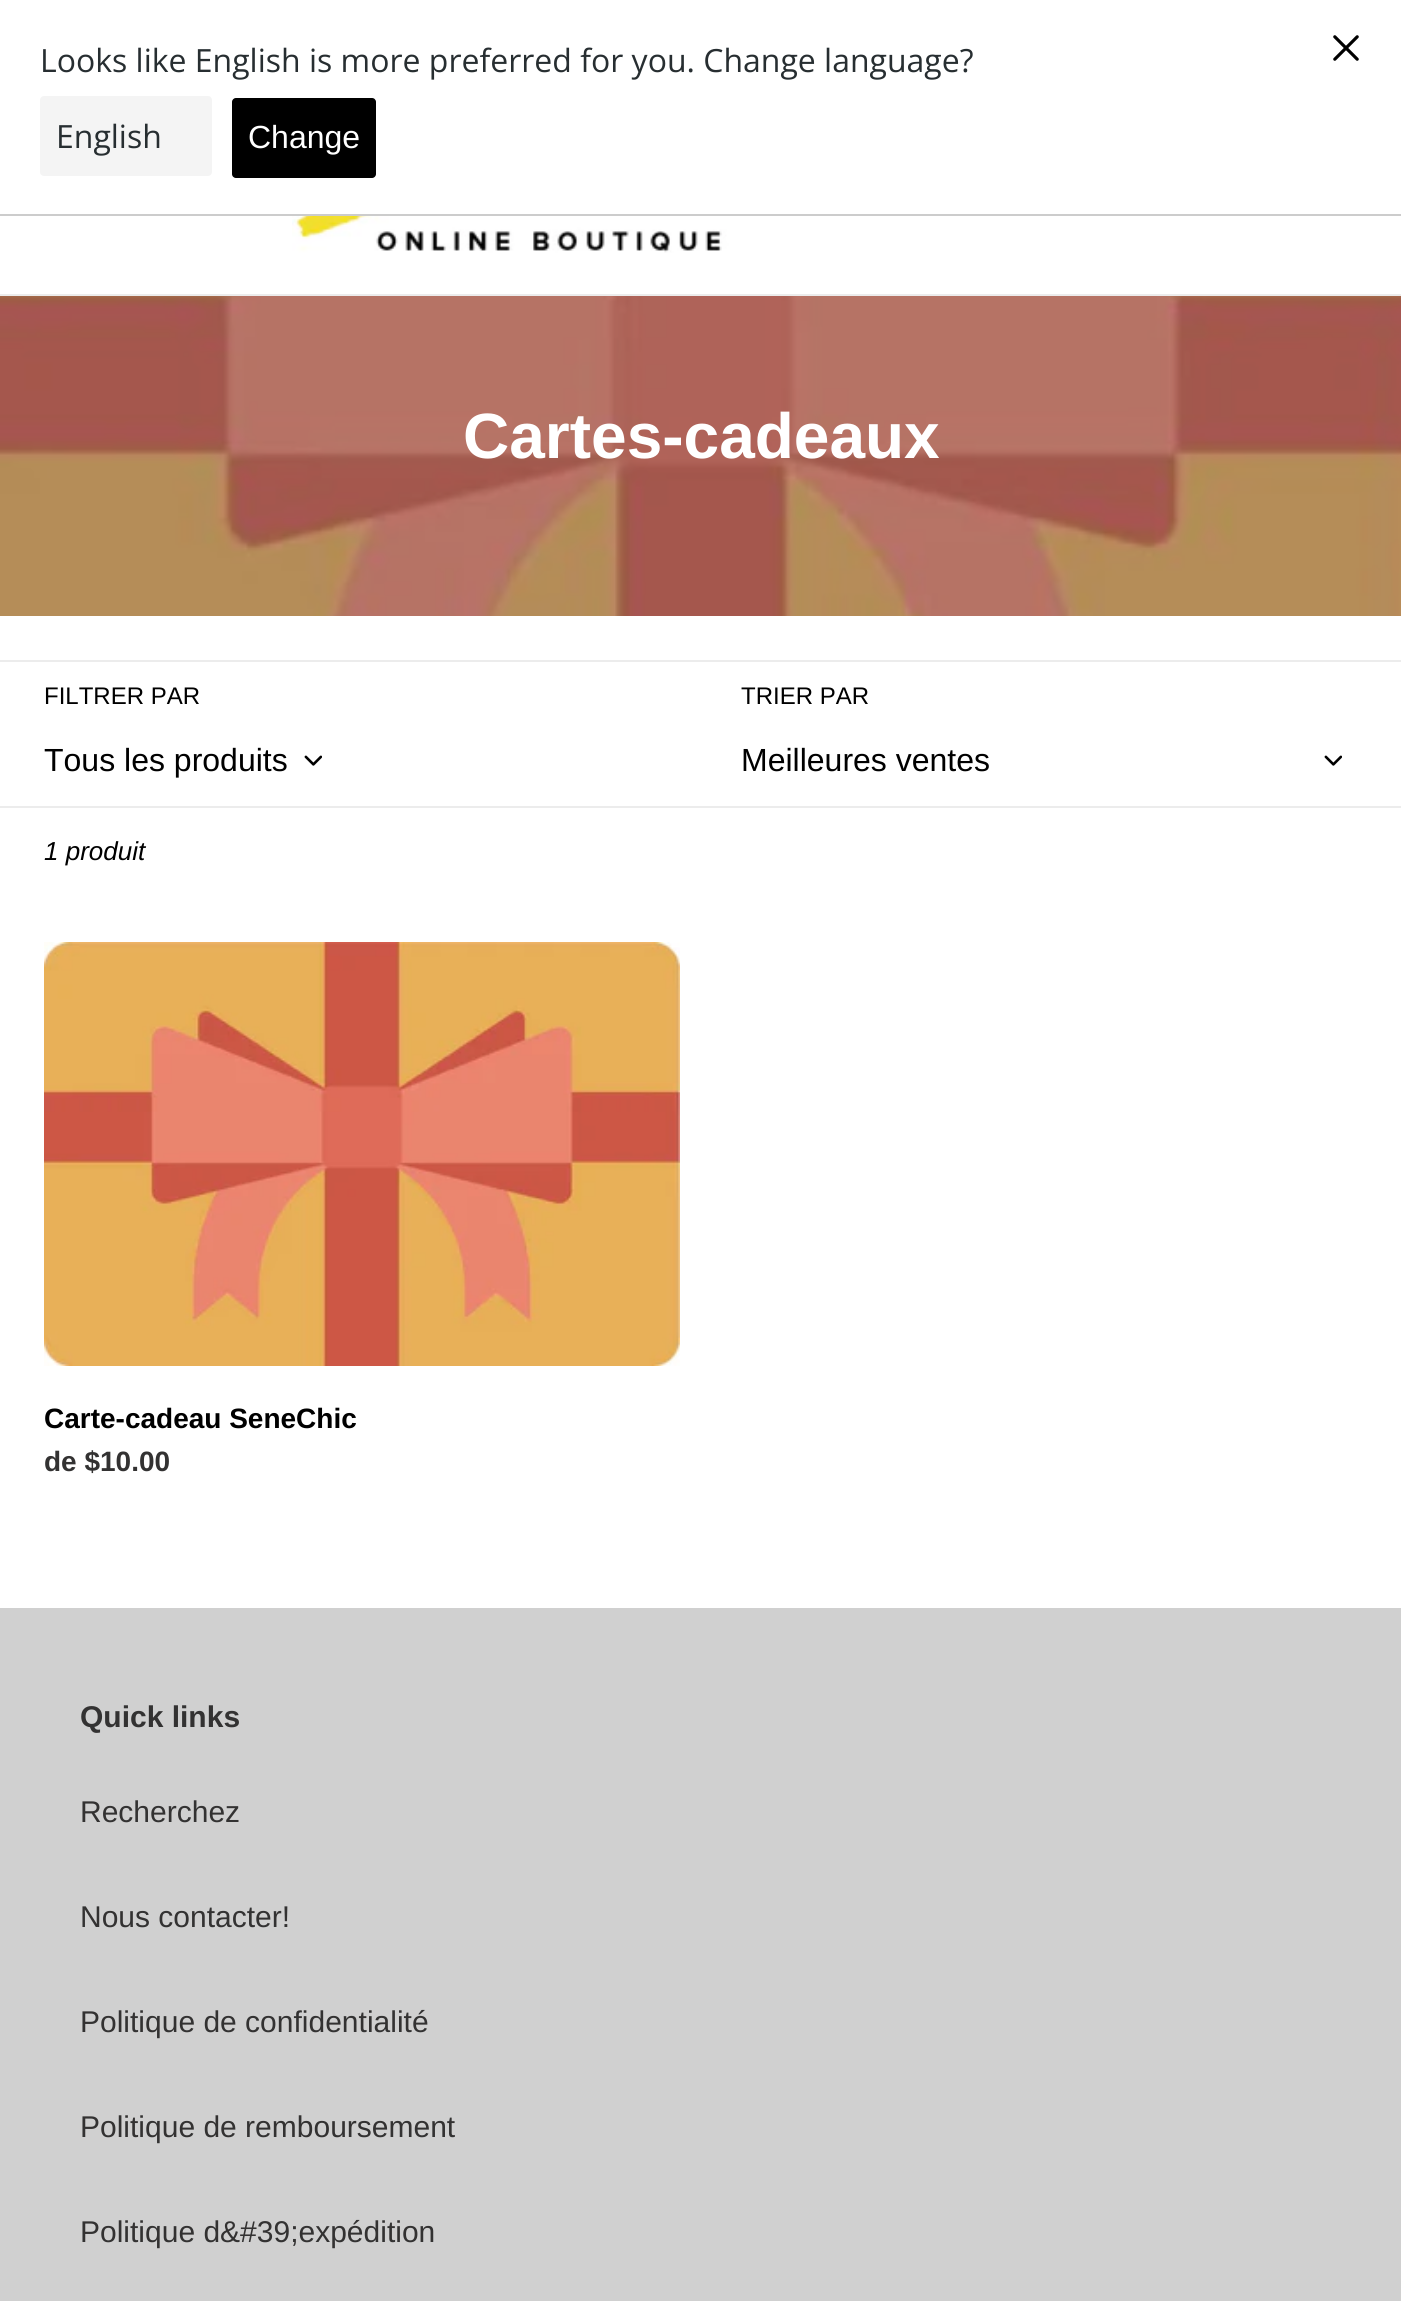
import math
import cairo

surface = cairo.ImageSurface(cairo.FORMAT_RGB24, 1401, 2301)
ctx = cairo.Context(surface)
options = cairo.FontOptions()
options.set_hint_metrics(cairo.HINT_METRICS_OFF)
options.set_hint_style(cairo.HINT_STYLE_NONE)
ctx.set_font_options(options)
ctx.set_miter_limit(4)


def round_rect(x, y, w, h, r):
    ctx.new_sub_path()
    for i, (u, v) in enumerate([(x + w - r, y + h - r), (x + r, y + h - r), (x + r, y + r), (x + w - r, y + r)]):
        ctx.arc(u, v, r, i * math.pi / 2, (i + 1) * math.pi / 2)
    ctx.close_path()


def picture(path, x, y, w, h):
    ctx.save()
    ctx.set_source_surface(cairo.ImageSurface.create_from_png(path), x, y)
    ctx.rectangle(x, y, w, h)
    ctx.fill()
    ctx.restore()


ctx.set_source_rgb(1, 1, 1)
ctx.paint()
ctx.set_source_rgb(0.8, 0.8, 0.8)
ctx.rectangle(0, 214, 1401, 2)
ctx.fill()
ctx.select_font_face("Open Sans")
ctx.set_font_size(32)
ctx.set_source_rgb(0.153, 0.18, 0.192)
ctx.move_to(40, 72)
ctx.show_text("Looks like English is more preferred for you. Change language?")
ctx.set_source_rgb(0.957, 0.957, 0.957)
round_rect(40, 96, 172, 80, 4)
ctx.fill()
ctx.set_source_rgb(0.153, 0.18, 0.192)
ctx.move_to(56, 148)
ctx.show_text("English")
ctx.set_source_rgb(0, 0, 0)
round_rect(232, 98, 144, 80, 4)
ctx.fill()
ctx.select_font_face("Liberation Sans")
ctx.set_source_rgb(1, 1, 1)
ctx.move_to(248, 148)
ctx.show_text("Change")
picture("img1.png", 1333, 35, 26, 26)
ctx.set_source_rgb(0.922, 0.922, 0.922)
ctx.rectangle(0, 294, 1401, 2)
ctx.fill()
picture("img2.png", 292, 216, 498, 37)
picture("img3.png", 0, 296, 1401, 320)
ctx.select_font_face("Liberation Sans", cairo.FONT_SLANT_NORMAL, cairo.FONT_WEIGHT_BOLD)
ctx.set_font_size(64)
ctx.set_source_rgb(1, 1, 1)
ctx.move_to(463, 458)
ctx.show_text("Cartes-cadeaux")
ctx.set_source_rgb(0.922, 0.922, 0.922)
ctx.rectangle(0, 660, 1401, 2)
ctx.fill()
ctx.select_font_face("Liberation Sans")
ctx.set_font_size(24)
ctx.set_source_rgb(0, 0, 0)
ctx.move_to(44, 704)
ctx.show_text("FILTRER PAR")
ctx.set_font_size(32)
ctx.move_to(44, 771)
ctx.show_text("Tous les produits")
picture("img4.png", 304, 755, 18, 11)
ctx.set_font_size(24)
ctx.move_to(741, 704)
ctx.show_text("TRIER PAR")
ctx.set_font_size(32)
ctx.move_to(741, 771)
ctx.show_text("Meilleures ventes")
picture("img4.png", 1324, 755, 18, 11)
ctx.set_source_rgb(0.922, 0.922, 0.922)
ctx.rectangle(0, 806, 1401, 2)
ctx.fill()
ctx.select_font_face("Liberation Sans", cairo.FONT_SLANT_ITALIC)
ctx.set_font_size(26)
ctx.set_source_rgb(0, 0, 0)
ctx.move_to(44, 860)
ctx.show_text("1 produit")
picture("img5.png", 44, 942, 636, 424)
ctx.select_font_face("Liberation Sans", cairo.FONT_SLANT_NORMAL, cairo.FONT_WEIGHT_BOLD)
ctx.set_font_size(28)
ctx.move_to(44, 1428)
ctx.show_text("Carte-cadeau SeneChic")
ctx.set_source_rgb(0.2, 0.196, 0.196)
ctx.move_to(44, 1471)
ctx.show_text("de $10.00")
ctx.set_source_rgb(0.816, 0.816, 0.816)
ctx.rectangle(0, 1608, 1401, 693)
ctx.fill()
ctx.set_font_size(30)
ctx.set_source_rgb(0.2, 0.196, 0.196)
ctx.move_to(80, 1727)
ctx.show_text("Quick links")
ctx.select_font_face("Liberation Sans")
ctx.move_to(80, 1822)
ctx.show_text("Recherchez")
ctx.move_to(80, 1927)
ctx.show_text("Nous contacter!")
ctx.move_to(80, 2032)
ctx.show_text("Politique de confidentialité")
ctx.move_to(80, 2137)
ctx.show_text("Politique de remboursement")
ctx.move_to(80, 2242)
ctx.show_text("Politique d&#39;expédition")
surface.write_to_png("page.png")
